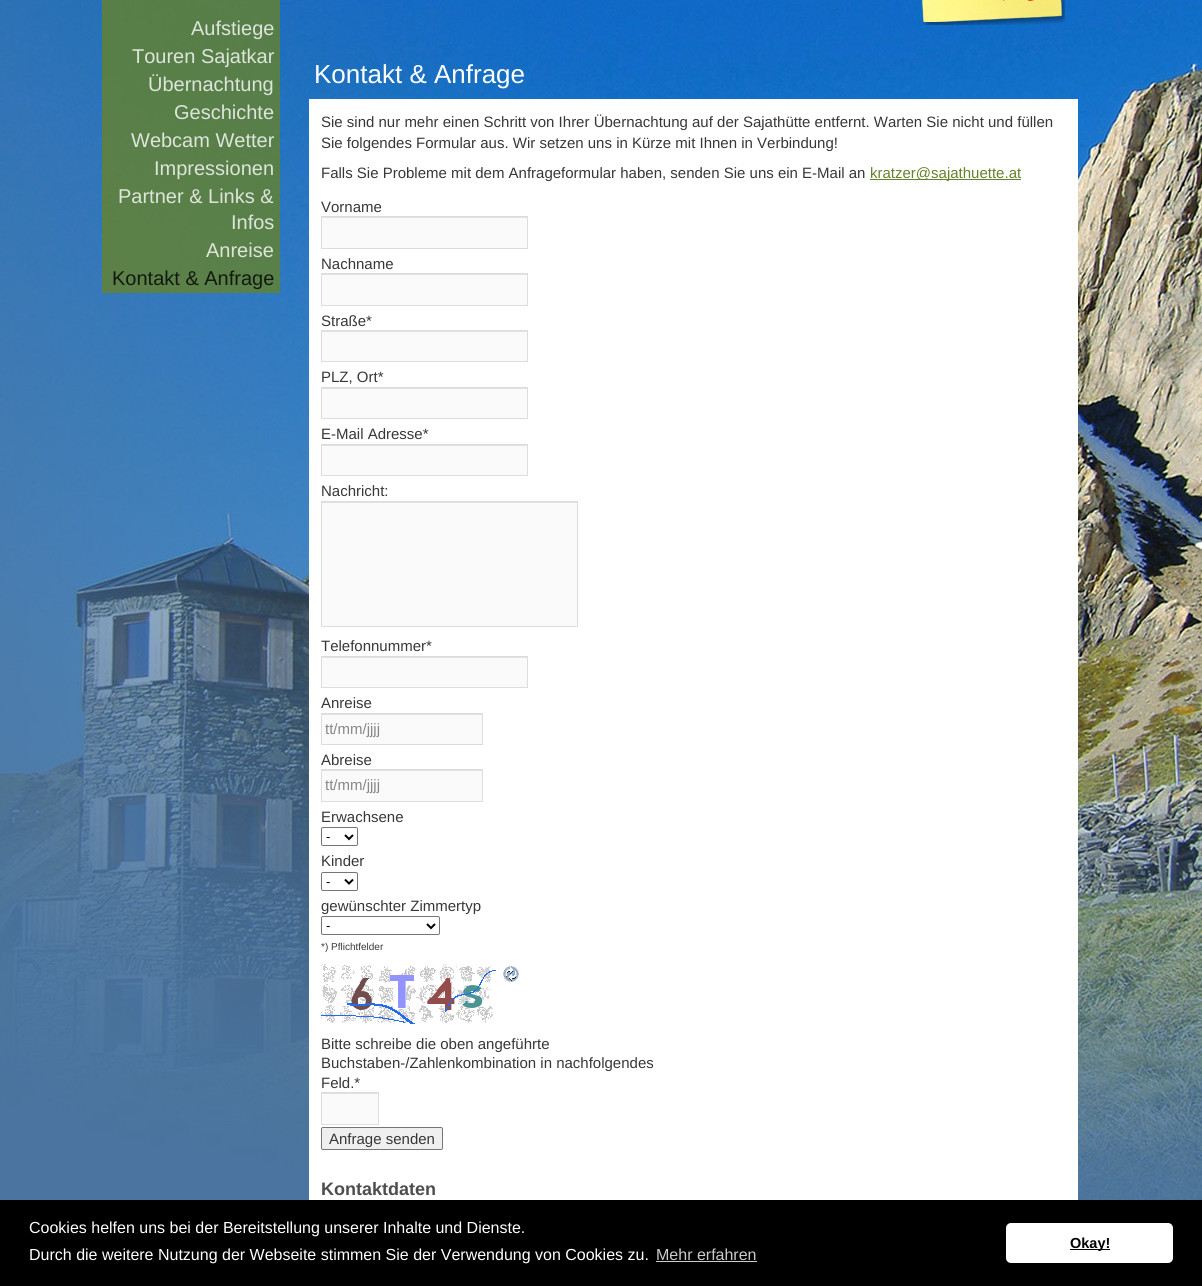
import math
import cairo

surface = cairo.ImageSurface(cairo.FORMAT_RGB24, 1202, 1286)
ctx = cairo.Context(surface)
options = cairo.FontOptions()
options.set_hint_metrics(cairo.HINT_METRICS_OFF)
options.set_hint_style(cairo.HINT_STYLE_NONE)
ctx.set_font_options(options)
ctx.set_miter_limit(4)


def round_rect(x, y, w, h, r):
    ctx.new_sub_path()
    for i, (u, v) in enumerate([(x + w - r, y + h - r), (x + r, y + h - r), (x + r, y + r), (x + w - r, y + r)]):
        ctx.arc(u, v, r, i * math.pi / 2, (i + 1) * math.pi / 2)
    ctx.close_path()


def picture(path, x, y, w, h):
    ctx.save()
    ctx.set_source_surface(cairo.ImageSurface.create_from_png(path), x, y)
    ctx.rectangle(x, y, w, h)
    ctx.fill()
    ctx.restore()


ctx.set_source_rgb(1, 1, 1)
ctx.paint()
picture("img1.png", 0, 0, 1202, 1200)
picture("img2.png", 922, 0, 143, 25)
ctx.set_source_rgba(0.396, 0.51, 0.173, 0.8)
ctx.rectangle(102, 0, 178, 15)
ctx.fill()
ctx.rectangle(102, 15, 178, 28)
ctx.fill()
ctx.select_font_face("Liberation Sans")
ctx.set_font_size(20)
ctx.set_source_rgb(0.867, 0.898, 0.859)
ctx.move_to(191, 35)
ctx.show_text("Aufstiege")
ctx.set_source_rgba(0.396, 0.51, 0.173, 0.8)
ctx.rectangle(102, 43, 178, 28)
ctx.fill()
ctx.set_source_rgb(0.867, 0.898, 0.859)
ctx.move_to(132, 63)
ctx.show_text("Touren Sajatkar")
ctx.set_source_rgba(0.396, 0.51, 0.173, 0.8)
ctx.rectangle(102, 71, 178, 28)
ctx.fill()
ctx.set_source_rgb(0.867, 0.898, 0.859)
ctx.move_to(148, 91)
ctx.show_text("Übernachtung")
ctx.set_source_rgba(0.396, 0.51, 0.173, 0.8)
ctx.rectangle(102, 99, 178, 28)
ctx.fill()
ctx.set_source_rgb(0.867, 0.898, 0.859)
ctx.move_to(174, 119)
ctx.show_text("Geschichte")
ctx.set_source_rgba(0.396, 0.51, 0.173, 0.8)
ctx.rectangle(102, 127, 178, 28)
ctx.fill()
ctx.set_source_rgb(0.867, 0.898, 0.859)
ctx.move_to(131, 147)
ctx.show_text("Webcam Wetter")
ctx.set_source_rgba(0.396, 0.51, 0.173, 0.8)
ctx.rectangle(102, 155, 178, 28)
ctx.fill()
ctx.set_source_rgb(0.867, 0.898, 0.859)
ctx.move_to(154, 175)
ctx.show_text("Impressionen")
ctx.set_source_rgba(0.396, 0.51, 0.173, 0.8)
ctx.rectangle(102, 183, 178, 54)
ctx.fill()
ctx.set_source_rgb(0.867, 0.898, 0.859)
ctx.move_to(118, 203)
ctx.show_text("Partner & Links &")
ctx.move_to(231, 229)
ctx.show_text("Infos")
ctx.set_source_rgba(0.396, 0.51, 0.173, 0.8)
ctx.rectangle(102, 237, 178, 28)
ctx.fill()
ctx.set_source_rgb(0.867, 0.898, 0.859)
ctx.move_to(206, 257)
ctx.show_text("Anreise")
ctx.set_source_rgba(0.396, 0.51, 0.173, 0.8)
ctx.rectangle(102, 265, 178, 28)
ctx.fill()
ctx.set_source_rgb(0.071, 0.102, 0.059)
ctx.move_to(112, 285)
ctx.show_text("Kontakt & Anfrage")
ctx.set_font_size(26)
ctx.set_source_rgb(1, 1, 1)
ctx.move_to(314, 83)
ctx.show_text("Kontakt & Anfrage")
ctx.rectangle(309, 99, 769, 1101)
ctx.fill()
ctx.set_font_size(15)
ctx.set_source_rgb(0.216, 0.216, 0.216)
ctx.move_to(321, 127)
ctx.show_text("Sie sind nur mehr einen Schritt von Ihrer Übernachtung auf der Sajathütte entfernt. Warten Sie nicht und füllen")
ctx.move_to(321, 148)
ctx.show_text("Sie folgendes Formular aus. Wir setzen uns in Kürze mit Ihnen in Verbindung!")
ctx.move_to(321, 178)
ctx.show_text("Falls Sie Probleme mit dem Anfrageformular haben, senden Sie uns ein E-Mail an")
ctx.set_source_rgb(0.396, 0.51, 0.173)
ctx.rectangle(870, 179, 151, 1)
ctx.fill()
ctx.move_to(870, 178)
ctx.show_text("kratzer@sajathuette.at")
ctx.set_source_rgb(0.216, 0.216, 0.216)
ctx.move_to(321, 212)
ctx.show_text("Vorname")
ctx.set_source_rgb(0.98, 0.98, 0.98)
ctx.rectangle(322, 218, 205, 30)
ctx.fill()
ctx.set_source_rgb(0.882, 0.882, 0.882)
ctx.rectangle(322, 217, 205, 1)
ctx.fill()
ctx.rectangle(321.5, 216.5, 206, 32)
ctx.set_source_rgb(0.867, 0.867, 0.867)
ctx.set_line_width(1)
ctx.stroke()
ctx.set_source_rgb(0.216, 0.216, 0.216)
ctx.move_to(321, 269)
ctx.show_text("Nachname")
ctx.set_source_rgb(0.98, 0.98, 0.98)
ctx.rectangle(322, 275, 205, 30)
ctx.fill()
ctx.set_source_rgb(0.882, 0.882, 0.882)
ctx.rectangle(322, 274, 205, 1)
ctx.fill()
ctx.rectangle(321.5, 273.5, 206, 32)
ctx.set_source_rgb(0.867, 0.867, 0.867)
ctx.stroke()
ctx.set_source_rgb(0.216, 0.216, 0.216)
ctx.move_to(321, 326)
ctx.show_text("Straße*")
ctx.set_source_rgb(0.98, 0.98, 0.98)
ctx.rectangle(322, 332, 205, 29)
ctx.fill()
ctx.set_source_rgb(0.882, 0.882, 0.882)
ctx.rectangle(322, 331, 205, 1)
ctx.fill()
ctx.rectangle(321.5, 330.5, 206, 31)
ctx.set_source_rgb(0.867, 0.867, 0.867)
ctx.stroke()
ctx.set_source_rgb(0.216, 0.216, 0.216)
ctx.move_to(321, 382)
ctx.show_text("PLZ, Ort*")
ctx.set_source_rgb(0.98, 0.98, 0.98)
ctx.rectangle(322, 389, 205, 29)
ctx.fill()
ctx.set_source_rgb(0.882, 0.882, 0.882)
ctx.rectangle(322, 388, 205, 1)
ctx.fill()
ctx.rectangle(321.5, 387.5, 206, 31)
ctx.set_source_rgb(0.867, 0.867, 0.867)
ctx.stroke()
ctx.set_source_rgb(0.216, 0.216, 0.216)
ctx.move_to(321, 439)
ctx.show_text("E-Mail Adresse*")
ctx.set_source_rgb(0.98, 0.98, 0.98)
ctx.rectangle(322, 446, 205, 29)
ctx.fill()
ctx.set_source_rgb(0.882, 0.882, 0.882)
ctx.rectangle(322, 445, 205, 1)
ctx.fill()
ctx.rectangle(321.5, 444.5, 206, 31)
ctx.set_source_rgb(0.867, 0.867, 0.867)
ctx.stroke()
ctx.set_source_rgb(0.216, 0.216, 0.216)
ctx.move_to(321, 496)
ctx.show_text("Nachricht:")
ctx.set_source_rgb(0.98, 0.98, 0.98)
ctx.rectangle(322, 503, 255, 123)
ctx.fill()
ctx.set_source_rgb(0.882, 0.882, 0.882)
ctx.rectangle(322, 502, 255, 1)
ctx.fill()
ctx.rectangle(321.5, 501.5, 256, 125)
ctx.set_source_rgb(0.867, 0.867, 0.867)
ctx.stroke()
ctx.set_source_rgb(0.216, 0.216, 0.216)
ctx.move_to(321, 651)
ctx.show_text("Telefonnummer*")
ctx.set_source_rgb(0.98, 0.98, 0.98)
ctx.rectangle(322, 658, 205, 29)
ctx.fill()
ctx.set_source_rgb(0.882, 0.882, 0.882)
ctx.rectangle(322, 657, 205, 1)
ctx.fill()
ctx.rectangle(321.5, 656.5, 206, 31)
ctx.set_source_rgb(0.867, 0.867, 0.867)
ctx.stroke()
ctx.set_source_rgb(0.216, 0.216, 0.216)
ctx.move_to(321, 708)
ctx.show_text("Anreise")
ctx.set_source_rgb(0.98, 0.98, 0.98)
ctx.rectangle(322, 715, 160, 29)
ctx.fill()
ctx.set_source_rgb(0.882, 0.882, 0.882)
ctx.rectangle(322, 714, 160, 1)
ctx.fill()
ctx.rectangle(321.5, 713.5, 161, 31)
ctx.set_source_rgb(0.867, 0.867, 0.867)
ctx.stroke()
ctx.set_source_rgb(0.533, 0.533, 0.533)
ctx.move_to(325, 734)
ctx.show_text("tt/mm/jjjj")
ctx.set_source_rgb(0.216, 0.216, 0.216)
ctx.move_to(321, 765)
ctx.show_text("Abreise")
ctx.set_source_rgb(0.98, 0.98, 0.98)
ctx.rectangle(322, 771, 160, 30)
ctx.fill()
ctx.set_source_rgb(0.882, 0.882, 0.882)
ctx.rectangle(322, 770, 160, 1)
ctx.fill()
ctx.rectangle(321.5, 769.5, 161, 32)
ctx.set_source_rgb(0.867, 0.867, 0.867)
ctx.stroke()
ctx.set_source_rgb(0.533, 0.533, 0.533)
ctx.move_to(325, 790)
ctx.show_text("tt/mm/jjjj")
ctx.set_source_rgb(0.216, 0.216, 0.216)
ctx.move_to(321, 822)
ctx.show_text("Erwachsene")
round_rect(321.5, 827.5, 36, 18, 1.5)
ctx.set_source_rgb(0.463, 0.463, 0.463)
ctx.stroke()
ctx.new_path()
ctx.move_to(345, 835)
ctx.line_to(349, 839)
ctx.line_to(353, 835)
ctx.set_source_rgb(0, 0, 0)
ctx.set_line_width(2)
ctx.stroke()
ctx.set_font_size(13)
ctx.move_to(326, 841)
ctx.show_text("-")
ctx.set_font_size(15)
ctx.set_source_rgb(0.216, 0.216, 0.216)
ctx.move_to(321, 866)
ctx.show_text("Kinder")
round_rect(321.5, 872.5, 36, 18, 1.5)
ctx.set_source_rgb(0.463, 0.463, 0.463)
ctx.set_line_width(1)
ctx.stroke()
ctx.new_path()
ctx.move_to(345, 879.5)
ctx.line_to(349, 883.5)
ctx.line_to(353, 879.5)
ctx.set_source_rgb(0, 0, 0)
ctx.set_line_width(2)
ctx.stroke()
ctx.set_font_size(13)
ctx.move_to(326, 886)
ctx.show_text("-")
ctx.set_font_size(15)
ctx.set_source_rgb(0.216, 0.216, 0.216)
ctx.move_to(321, 911)
ctx.show_text("gewünschter Zimmertyp")
round_rect(321.5, 916.5, 118, 18, 1.5)
ctx.set_source_rgb(0.463, 0.463, 0.463)
ctx.set_line_width(1)
ctx.stroke()
ctx.new_path()
ctx.move_to(427, 924)
ctx.line_to(431, 928)
ctx.line_to(435, 924)
ctx.set_source_rgb(0, 0, 0)
ctx.set_line_width(2)
ctx.stroke()
ctx.set_font_size(13)
ctx.move_to(326, 930)
ctx.show_text("-")
ctx.set_font_size(10)
ctx.set_source_rgb(0.216, 0.216, 0.216)
ctx.move_to(321, 950)
ctx.show_text("*) Pflichtfelder")
picture("img3.png", 321, 964, 175, 60)
picture("img4.png", 503, 966, 16, 16)
ctx.set_font_size(15)
ctx.move_to(321, 1049)
ctx.show_text("Bitte schreibe die oben angeführte")
ctx.move_to(321, 1068)
ctx.show_text("Buchstaben-/Zahlenkombination in nachfolgendes")
ctx.move_to(321, 1088)
ctx.show_text("Feld.*")
ctx.set_source_rgb(0.98, 0.98, 0.98)
ctx.rectangle(322, 1094, 56, 30)
ctx.fill()
ctx.set_source_rgb(0.882, 0.882, 0.882)
ctx.rectangle(322, 1093, 56, 1)
ctx.fill()
ctx.rectangle(321.5, 1092.5, 57, 32)
ctx.set_source_rgb(0.867, 0.867, 0.867)
ctx.set_line_width(1)
ctx.stroke()
ctx.set_source_rgb(0.937, 0.937, 0.937)
round_rect(321.5, 1127.5, 121, 22, 1.5)
ctx.fill_preserve()
ctx.set_source_rgb(0.463, 0.463, 0.463)
ctx.stroke()
ctx.set_source_rgb(0.216, 0.216, 0.216)
ctx.move_to(329, 1144)
ctx.show_text("Anfrage senden")
ctx.select_font_face("Liberation Sans", cairo.FONT_SLANT_NORMAL, cairo.FONT_WEIGHT_BOLD)
ctx.set_font_size(18)
ctx.set_source_rgb(0.302, 0.302, 0.302)
ctx.move_to(321, 1195)
ctx.show_text("Kontaktdaten")
ctx.set_source_rgb(0, 0, 0)
ctx.rectangle(0, 1200, 1202, 86)
ctx.fill()
ctx.select_font_face("Liberation Sans")
ctx.set_font_size(16)
ctx.set_source_rgb(1, 1, 1)
ctx.move_to(29, 1233)
ctx.show_text("Cookies helfen uns bei der Bereitstellung unserer Inhalte und Dienste.")
ctx.move_to(29, 1260)
ctx.show_text("Durch die weitere Nutzung der Webseite stimmen Sie der Verwendung von Cookies zu.")
ctx.set_source_rgb(0.8, 0.8, 0.8)
ctx.move_to(656, 1260)
ctx.show_text("Mehr erfahren")
ctx.rectangle(656, 1261, 101, 1)
ctx.fill()
ctx.set_source_rgb(1, 1, 1)
round_rect(1006, 1223, 167, 40, 5)
ctx.fill()
ctx.set_source_rgb(0, 0, 0)
ctx.rectangle(1070, 1249, 40, 1)
ctx.fill()
ctx.select_font_face("Liberation Sans", cairo.FONT_SLANT_NORMAL, cairo.FONT_WEIGHT_BOLD)
ctx.set_font_size(14.5)
ctx.move_to(1070, 1248)
ctx.show_text("Okay!")
surface.write_to_png("page.png")
